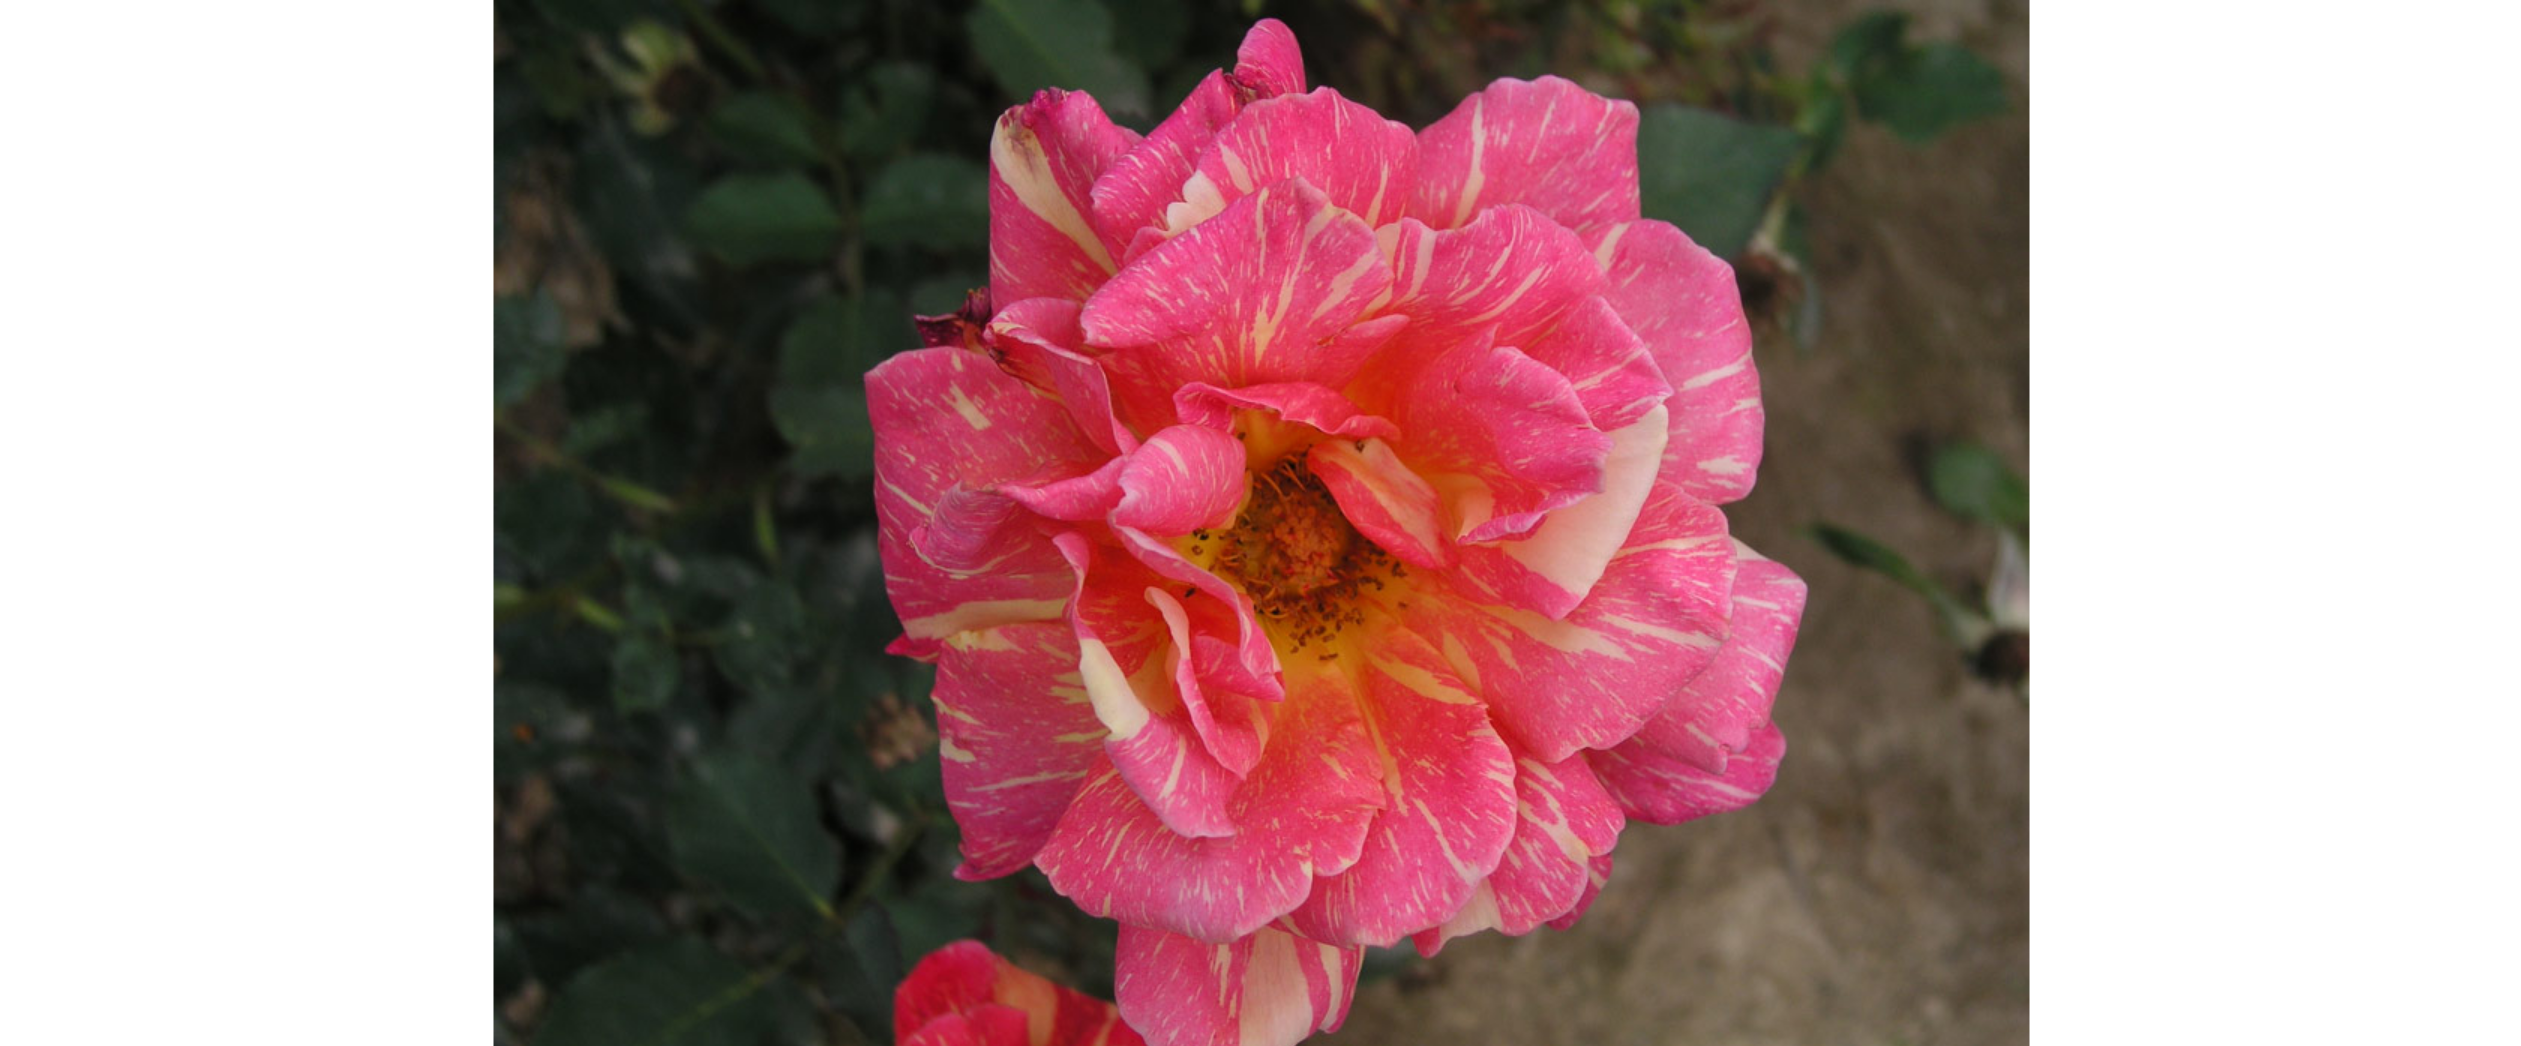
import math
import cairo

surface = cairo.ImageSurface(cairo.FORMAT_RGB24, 2521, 1046)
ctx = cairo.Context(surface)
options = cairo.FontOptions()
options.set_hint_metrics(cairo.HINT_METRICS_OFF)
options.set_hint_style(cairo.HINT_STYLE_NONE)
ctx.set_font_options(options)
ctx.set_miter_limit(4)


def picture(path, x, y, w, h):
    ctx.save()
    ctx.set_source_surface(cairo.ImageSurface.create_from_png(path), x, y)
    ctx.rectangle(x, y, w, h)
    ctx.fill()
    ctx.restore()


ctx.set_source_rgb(1, 1, 1)
ctx.paint()
picture("img1.png", 493, 0, 1537, 1046)
surface.write_to_png("page.png")
